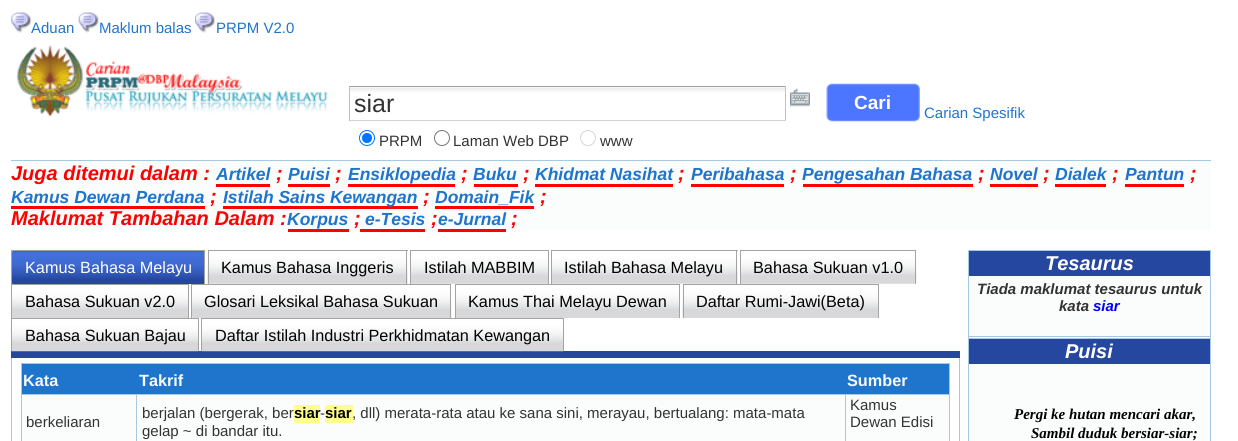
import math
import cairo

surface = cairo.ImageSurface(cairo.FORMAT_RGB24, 1238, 441)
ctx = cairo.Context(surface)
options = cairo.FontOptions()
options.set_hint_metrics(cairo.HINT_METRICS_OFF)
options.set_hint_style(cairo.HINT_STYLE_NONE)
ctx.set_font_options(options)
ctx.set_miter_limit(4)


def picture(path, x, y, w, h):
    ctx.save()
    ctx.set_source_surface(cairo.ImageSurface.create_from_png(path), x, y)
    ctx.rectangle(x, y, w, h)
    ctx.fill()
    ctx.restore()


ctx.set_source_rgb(1, 1, 1)
ctx.paint()
picture("img1.png", 11, 12, 21, 21)
ctx.select_font_face("Liberation Sans")
ctx.set_font_size(15)
ctx.set_source_rgb(0.122, 0.459, 0.8)
ctx.move_to(31, 33)
ctx.show_text("Aduan")
picture("img2.png", 78, 12, 21, 21)
ctx.move_to(99, 33)
ctx.show_text("Maklum balas")
picture("img3.png", 195, 12, 20, 21)
ctx.move_to(216, 33)
ctx.show_text("PRPM V2.0")
picture("img4.png", 16, 45, 312, 72)
picture("img5.png", 348, 87, 439, 5)
ctx.set_source_rgb(0.631, 0.631, 0.631)
ctx.rectangle(349, 86, 437, 1)
ctx.fill()
ctx.set_source_rgb(0.757, 0.757, 0.757)
ctx.rectangle(785, 86, 1, 35)
ctx.fill()
ctx.set_source_rgb(0.82, 0.82, 0.82)
ctx.rectangle(349, 120, 437, 1)
ctx.fill()
ctx.set_source_rgb(0.757, 0.757, 0.757)
ctx.rectangle(349, 86, 1, 35)
ctx.fill()
ctx.set_font_size(25)
ctx.set_source_rgb(0.2, 0.2, 0.2)
ctx.move_to(354, 112)
ctx.show_text("siar")
picture("img6.png", 790, 88, 20, 19)
picture("img7.png", 826, 83, 94, 39)
ctx.select_font_face("Liberation Sans", cairo.FONT_SLANT_NORMAL, cairo.FONT_WEIGHT_BOLD)
ctx.set_font_size(19)
ctx.set_source_rgb(1, 1, 1)
ctx.move_to(854, 109)
ctx.show_text("Cari")
ctx.select_font_face("Liberation Sans")
ctx.set_font_size(15)
ctx.set_source_rgb(0.122, 0.459, 0.8)
ctx.move_to(924, 118)
ctx.show_text("Carian Spesifik")
ctx.new_path()
ctx.arc(367, 138, 7.5, 0, 2 * math.pi)
ctx.set_source_rgb(0, 0.459, 1)
ctx.set_line_width(1)
ctx.stroke()
ctx.arc(367, 138, 5, 0, 2 * math.pi)
ctx.fill()
ctx.set_source_rgb(0.2, 0.2, 0.2)
ctx.move_to(379, 146)
ctx.show_text("PRPM")
ctx.new_path()
ctx.arc(442, 138, 7.5, 0, 2 * math.pi)
ctx.set_source_rgb(0.463, 0.463, 0.463)
ctx.stroke()
ctx.set_source_rgb(0.2, 0.2, 0.2)
ctx.move_to(453, 146)
ctx.show_text("Laman Web DBP")
ctx.new_path()
ctx.arc(588, 138, 7.5, 0, 2 * math.pi)
ctx.set_source_rgb(0.839, 0.839, 0.839)
ctx.stroke()
ctx.set_source_rgb(0.2, 0.2, 0.2)
ctx.move_to(600, 146)
ctx.show_text("www")
ctx.set_source_rgb(0.984, 0.988, 0.988)
ctx.rectangle(11, 161, 1200, 69)
ctx.fill()
ctx.set_source_rgb(0.651, 0.788, 0.886)
ctx.rectangle(11, 160, 1200, 1)
ctx.fill()
ctx.select_font_face("Liberation Sans", cairo.FONT_SLANT_ITALIC, cairo.FONT_WEIGHT_BOLD)
ctx.set_font_size(20)
ctx.set_source_rgb(1, 0, 0)
ctx.move_to(11, 180)
ctx.show_text("Juga ditemui dalam :")
ctx.set_font_size(17.5)
ctx.set_source_rgb(0.122, 0.459, 0.8)
ctx.move_to(216, 180)
ctx.show_text("Artikel")
ctx.set_source_rgb(1, 0, 0)
ctx.rectangle(216, 184, 54, 3)
ctx.fill()
ctx.set_font_size(20)
ctx.move_to(276, 180)
ctx.show_text(";")
ctx.set_font_size(17.5)
ctx.set_source_rgb(0.122, 0.459, 0.8)
ctx.move_to(288, 180)
ctx.show_text("Puisi")
ctx.set_source_rgb(1, 0, 0)
ctx.rectangle(288, 184, 42, 3)
ctx.fill()
ctx.set_font_size(20)
ctx.move_to(335, 180)
ctx.show_text(";")
ctx.set_font_size(17.5)
ctx.set_source_rgb(0.122, 0.459, 0.8)
ctx.move_to(348, 180)
ctx.show_text("Ensiklopedia")
ctx.set_source_rgb(1, 0, 0)
ctx.rectangle(348, 184, 107, 3)
ctx.fill()
ctx.set_font_size(20)
ctx.move_to(461, 180)
ctx.show_text(";")
ctx.set_font_size(17.5)
ctx.set_source_rgb(0.122, 0.459, 0.8)
ctx.move_to(473, 180)
ctx.show_text("Buku")
ctx.set_source_rgb(1, 0, 0)
ctx.rectangle(474, 184, 44, 3)
ctx.fill()
ctx.set_font_size(20)
ctx.move_to(523, 180)
ctx.show_text(";")
ctx.set_font_size(17.5)
ctx.set_source_rgb(0.122, 0.459, 0.8)
ctx.move_to(535, 180)
ctx.show_text("Khidmat Nasihat")
ctx.set_source_rgb(1, 0, 0)
ctx.rectangle(535, 184, 138, 3)
ctx.fill()
ctx.set_font_size(20)
ctx.move_to(678, 180)
ctx.show_text(";")
ctx.set_font_size(17.5)
ctx.set_source_rgb(0.122, 0.459, 0.8)
ctx.move_to(691, 180)
ctx.show_text("Peribahasa")
ctx.set_source_rgb(1, 0, 0)
ctx.rectangle(691, 184, 93, 3)
ctx.fill()
ctx.set_font_size(20)
ctx.move_to(790, 180)
ctx.show_text(";")
ctx.set_font_size(17.5)
ctx.set_source_rgb(0.122, 0.459, 0.8)
ctx.move_to(802, 180)
ctx.show_text("Pengesahan Bahasa")
ctx.set_source_rgb(1, 0, 0)
ctx.rectangle(803, 184, 170, 3)
ctx.fill()
ctx.set_font_size(20)
ctx.move_to(978, 180)
ctx.show_text(";")
ctx.set_font_size(17.5)
ctx.set_source_rgb(0.122, 0.459, 0.8)
ctx.move_to(990, 180)
ctx.show_text("Novel")
ctx.set_source_rgb(1, 0, 0)
ctx.rectangle(990, 184, 48, 3)
ctx.fill()
ctx.set_font_size(20)
ctx.move_to(1043, 180)
ctx.show_text(";")
ctx.set_font_size(17.5)
ctx.set_source_rgb(0.122, 0.459, 0.8)
ctx.move_to(1055, 180)
ctx.show_text("Dialek")
ctx.set_source_rgb(1, 0, 0)
ctx.rectangle(1055, 184, 51, 3)
ctx.fill()
ctx.set_font_size(20)
ctx.move_to(1112, 180)
ctx.show_text(";")
ctx.set_font_size(17.5)
ctx.set_source_rgb(0.122, 0.459, 0.8)
ctx.move_to(1125, 180)
ctx.show_text("Pantun")
ctx.set_source_rgb(1, 0, 0)
ctx.rectangle(1125, 184, 59, 3)
ctx.fill()
ctx.set_font_size(20)
ctx.move_to(1190, 180)
ctx.show_text(";")
ctx.set_font_size(17.5)
ctx.set_source_rgb(0.122, 0.459, 0.8)
ctx.move_to(11, 203)
ctx.show_text("Kamus Dewan Perdana")
ctx.set_source_rgb(1, 0, 0)
ctx.rectangle(11, 206, 194, 3)
ctx.fill()
ctx.set_font_size(20)
ctx.move_to(210, 203)
ctx.show_text(";")
ctx.rectangle(223, 206, 195, 3)
ctx.fill()
ctx.set_font_size(17.5)
ctx.set_source_rgb(0.122, 0.459, 0.8)
ctx.move_to(223, 203)
ctx.show_text("Istilah Sains Kewangan")
ctx.set_font_size(20)
ctx.set_source_rgb(1, 0, 0)
ctx.move_to(423, 203)
ctx.show_text(";")
ctx.set_font_size(17.5)
ctx.set_source_rgb(0.122, 0.459, 0.8)
ctx.move_to(435, 203)
ctx.show_text("Domain_Fik")
ctx.set_source_rgb(1, 0, 0)
ctx.rectangle(435, 206, 99, 3)
ctx.fill()
ctx.set_font_size(20)
ctx.move_to(540, 203)
ctx.show_text(";")
ctx.move_to(11, 225)
ctx.show_text("Maklumat Tambahan Dalam :")
ctx.set_font_size(17.5)
ctx.set_source_rgb(0.122, 0.459, 0.8)
ctx.move_to(287, 225)
ctx.show_text("Korpus")
ctx.set_source_rgb(1, 0, 0)
ctx.rectangle(288, 229, 61, 3)
ctx.fill()
ctx.set_font_size(20)
ctx.move_to(354, 225)
ctx.show_text(";")
ctx.set_font_size(17.5)
ctx.set_source_rgb(0.122, 0.459, 0.8)
ctx.move_to(365, 225)
ctx.show_text("e-Tesis")
ctx.set_source_rgb(1, 0, 0)
ctx.rectangle(360, 229, 65, 3)
ctx.fill()
ctx.set_font_size(20)
ctx.move_to(431, 225)
ctx.show_text(";")
ctx.set_font_size(17.5)
ctx.set_source_rgb(0.122, 0.459, 0.8)
ctx.move_to(438, 225)
ctx.show_text("e-Jurnal")
ctx.set_source_rgb(1, 0, 0)
ctx.rectangle(438, 229, 68, 3)
ctx.fill()
ctx.set_font_size(20)
ctx.move_to(511, 225)
ctx.show_text(";")
ctx.set_source_rgb(0.149, 0.278, 0.627)
ctx.rectangle(11, 351, 949, 7)
ctx.fill()
ctx.rectangle(13, 251, 191, 33)
ctx.fill()
picture("img8.png", 12, 251, 192, 33)
ctx.set_source_rgb(0.639, 0.639, 0.639)
ctx.rectangle(11, 250, 194, 1)
ctx.fill()
ctx.rectangle(204, 250, 1, 34)
ctx.fill()
ctx.rectangle(11, 250, 1, 34)
ctx.fill()
ctx.select_font_face("Liberation Sans")
ctx.set_font_size(16.25)
ctx.set_source_rgb(1, 1, 1)
ctx.move_to(25, 273)
ctx.show_text("Kamus Bahasa Melayu")
picture("img9.png", 207, 251, 201, 33)
ctx.set_source_rgb(0.639, 0.639, 0.639)
ctx.rectangle(208, 250, 200, 1)
ctx.fill()
ctx.rectangle(406, 250, 1, 34)
ctx.fill()
ctx.rectangle(208, 250, 1, 34)
ctx.fill()
ctx.set_source_rgb(0, 0, 0)
ctx.move_to(221, 273)
ctx.show_text("Kamus Bahasa Inggeris")
picture("img10.png", 411, 251, 137, 33)
ctx.set_source_rgb(0.639, 0.639, 0.639)
ctx.rectangle(410, 250, 139, 1)
ctx.fill()
ctx.rectangle(548, 250, 1, 34)
ctx.fill()
ctx.rectangle(410, 250, 1, 34)
ctx.fill()
ctx.set_source_rgb(0, 0, 0)
ctx.move_to(424, 273)
ctx.show_text("Istilah MABBIM")
picture("img11.png", 552, 251, 186, 33)
ctx.set_source_rgb(0.639, 0.639, 0.639)
ctx.rectangle(551, 250, 187, 1)
ctx.fill()
ctx.rectangle(736, 250, 1, 34)
ctx.fill()
ctx.rectangle(551, 250, 1, 34)
ctx.fill()
ctx.set_source_rgb(0, 0, 0)
ctx.move_to(564, 273)
ctx.show_text("Istilah Bahasa Melayu")
picture("img12.png", 741, 251, 176, 33)
ctx.set_source_rgb(0.639, 0.639, 0.639)
ctx.rectangle(740, 250, 176, 1)
ctx.fill()
ctx.rectangle(915, 250, 1, 34)
ctx.fill()
ctx.rectangle(740, 250, 1, 34)
ctx.fill()
ctx.set_source_rgb(0, 0, 0)
ctx.move_to(753, 273)
ctx.show_text("Bahasa Sukuan v1.0")
ctx.set_source_rgb(0.847, 0.847, 0.847)
ctx.rectangle(13, 317, 175, 1)
ctx.fill()
picture("img13.png", 12, 285, 176, 33)
ctx.set_source_rgb(0.639, 0.639, 0.639)
ctx.rectangle(11, 284, 178, 1)
ctx.fill()
ctx.rectangle(188, 284, 1, 34)
ctx.fill()
ctx.rectangle(11, 284, 1, 34)
ctx.fill()
ctx.set_source_rgb(0, 0, 0)
ctx.move_to(25, 307)
ctx.show_text("Bahasa Sukuan v2.0")
ctx.set_source_rgb(0.847, 0.847, 0.847)
ctx.rectangle(193, 317, 257, 1)
ctx.fill()
picture("img14.png", 192, 285, 260, 33)
ctx.set_source_rgb(0.639, 0.639, 0.639)
ctx.rectangle(191, 284, 260, 1)
ctx.fill()
ctx.rectangle(450, 284, 1, 34)
ctx.fill()
ctx.rectangle(191, 284, 1, 34)
ctx.fill()
ctx.set_source_rgb(0, 0, 0)
ctx.move_to(204, 307)
ctx.show_text("Glosari Leksikal Bahasa Sukuan")
ctx.set_source_rgb(0.847, 0.847, 0.847)
ctx.rectangle(456, 317, 223, 1)
ctx.fill()
picture("img15.png", 456, 285, 223, 33)
ctx.set_source_rgb(0.639, 0.639, 0.639)
ctx.rectangle(455, 284, 225, 1)
ctx.fill()
ctx.rectangle(679, 284, 1, 34)
ctx.fill()
ctx.rectangle(455, 284, 1, 34)
ctx.fill()
ctx.set_source_rgb(0, 0, 0)
ctx.move_to(468, 307)
ctx.show_text("Kamus Thai Melayu Dewan")
ctx.set_source_rgb(0.847, 0.847, 0.847)
ctx.rectangle(684, 317, 194, 1)
ctx.fill()
picture("img16.png", 682, 285, 196, 33)
ctx.set_source_rgb(0.639, 0.639, 0.639)
ctx.rectangle(683, 284, 196, 1)
ctx.fill()
ctx.rectangle(878, 284, 1, 34)
ctx.fill()
ctx.rectangle(683, 284, 1, 34)
ctx.fill()
ctx.set_source_rgb(0, 0, 0)
ctx.move_to(696, 307)
ctx.show_text("Daftar Rumi-Jawi(Beta)")
picture("img17.png", 11, 319, 188, 33)
ctx.set_source_rgb(0.639, 0.639, 0.639)
ctx.rectangle(11, 318, 188, 1)
ctx.fill()
ctx.rectangle(198, 318, 1, 33)
ctx.fill()
ctx.rectangle(11, 318, 1, 33)
ctx.fill()
ctx.set_source_rgb(0, 0, 0)
ctx.move_to(25, 341)
ctx.show_text("Bahasa Sukuan Bajau")
picture("img18.png", 201, 319, 363, 33)
ctx.set_source_rgb(0.639, 0.639, 0.639)
ctx.rectangle(201, 318, 363, 1)
ctx.fill()
ctx.rectangle(563, 318, 1, 33)
ctx.fill()
ctx.rectangle(201, 318, 1, 33)
ctx.fill()
ctx.set_source_rgb(0, 0, 0)
ctx.move_to(215, 341)
ctx.show_text("Daftar Istilah Industri Perkhidmatan Kewangan")
ctx.set_source_rgb(0.651, 0.788, 0.886)
ctx.rectangle(959, 358, 1, 83)
ctx.fill()
ctx.rectangle(11, 358, 1, 83)
ctx.fill()
ctx.rectangle(21, 363, 929, 1)
ctx.fill()
ctx.rectangle(949, 363, 1, 78)
ctx.fill()
ctx.rectangle(21, 363, 1, 78)
ctx.fill()
ctx.set_source_rgb(0.122, 0.459, 0.8)
ctx.rectangle(22, 364, 927, 30)
ctx.fill()
ctx.select_font_face("Liberation Sans", cairo.FONT_SLANT_NORMAL, cairo.FONT_WEIGHT_BOLD)
ctx.set_source_rgb(0.961, 0.98, 0.996)
ctx.move_to(23, 386)
ctx.show_text("Kata")
ctx.move_to(139, 386)
ctx.show_text("Takrif")
ctx.move_to(847, 386)
ctx.show_text("Sumber")
ctx.set_source_rgb(0.984, 0.988, 0.988)
ctx.rectangle(22, 395, 823, 46)
ctx.fill()
ctx.set_source_rgb(0.651, 0.788, 0.886)
ctx.rectangle(845, 394, 105, 1)
ctx.fill()
ctx.rectangle(845, 394, 1, 47)
ctx.fill()
ctx.rectangle(136, 394, 710, 1)
ctx.fill()
ctx.rectangle(136, 394, 1, 47)
ctx.fill()
ctx.rectangle(21, 394, 117, 1)
ctx.fill()
ctx.select_font_face("Liberation Sans")
ctx.set_font_size(15)
ctx.set_source_rgb(0.2, 0.2, 0.2)
ctx.move_to(26, 427)
ctx.show_text("berkeliaran")
ctx.move_to(142, 418)
ctx.show_text("berjalan (bergerak, ber")
ctx.set_source_rgb(0.996, 1, 0.553)
ctx.rectangle(294, 405, 26, 18)
ctx.fill()
ctx.select_font_face("Liberation Sans", cairo.FONT_SLANT_NORMAL, cairo.FONT_WEIGHT_BOLD)
ctx.set_source_rgb(0, 0, 0)
ctx.move_to(294, 418)
ctx.show_text("siar")
ctx.select_font_face("Liberation Sans")
ctx.set_source_rgb(0.2, 0.2, 0.2)
ctx.move_to(320, 418)
ctx.show_text("-")
ctx.set_source_rgb(0.996, 1, 0.553)
ctx.rectangle(325, 405, 28, 18)
ctx.fill()
ctx.select_font_face("Liberation Sans", cairo.FONT_SLANT_NORMAL, cairo.FONT_WEIGHT_BOLD)
ctx.set_source_rgb(0, 0, 0)
ctx.move_to(325, 418)
ctx.show_text("siar")
ctx.select_font_face("Liberation Sans")
ctx.set_source_rgb(0.2, 0.2, 0.2)
ctx.move_to(352, 418)
ctx.show_text(", dll) merata-rata atau ke sana sini, merayau, bertualang: mata-mata")
ctx.move_to(142, 436)
ctx.show_text("gelap ~ di bandar itu.")
ctx.set_source_rgb(0.984, 0.988, 0.988)
ctx.rectangle(846, 395, 103, 46)
ctx.fill()
ctx.set_source_rgb(0.2, 0.2, 0.2)
ctx.move_to(850, 410)
ctx.show_text("Kamus")
ctx.move_to(850, 427)
ctx.show_text("Dewan Edisi")
ctx.set_source_rgb(0.651, 0.788, 0.886)
ctx.rectangle(968, 250, 243, 1)
ctx.fill()
ctx.set_source_rgb(0.984, 0.988, 0.988)
ctx.rectangle(969, 276, 242, 3)
ctx.fill()
ctx.set_source_rgb(0.651, 0.788, 0.886)
ctx.rectangle(1210, 250, 1, 88)
ctx.fill()
ctx.set_source_rgb(0.984, 0.988, 0.988)
ctx.rectangle(969, 279, 241, 59)
ctx.fill()
ctx.set_source_rgb(0.651, 0.788, 0.886)
ctx.rectangle(968, 336, 243, 1)
ctx.fill()
ctx.rectangle(968, 250, 1, 88)
ctx.fill()
ctx.set_source_rgb(0.149, 0.278, 0.627)
ctx.rectangle(969, 251, 241, 25)
ctx.fill()
ctx.select_font_face("Liberation Sans", cairo.FONT_SLANT_ITALIC, cairo.FONT_WEIGHT_BOLD)
ctx.set_font_size(20)
ctx.set_source_rgb(1, 1, 1)
ctx.move_to(1045, 270)
ctx.show_text("Tesaurus")
ctx.set_font_size(15)
ctx.set_source_rgb(0.2, 0.2, 0.2)
ctx.move_to(977, 294)
ctx.show_text("Tiada maklumat tesaurus untuk")
ctx.move_to(1059, 311)
ctx.show_text("kata")
ctx.set_source_rgb(0, 0, 1)
ctx.move_to(1093, 311)
ctx.show_text("siar")
ctx.set_source_rgb(0.651, 0.788, 0.886)
ctx.rectangle(968, 338, 243, 1)
ctx.fill()
ctx.set_source_rgb(0.984, 0.988, 0.988)
ctx.rectangle(969, 364, 242, 2)
ctx.fill()
ctx.set_source_rgb(0.651, 0.788, 0.886)
ctx.rectangle(1210, 338, 1, 103)
ctx.fill()
ctx.rectangle(968, 338, 1, 103)
ctx.fill()
ctx.set_source_rgb(0.149, 0.278, 0.627)
ctx.rectangle(969, 339, 241, 25)
ctx.fill()
ctx.set_font_size(20)
ctx.set_source_rgb(1, 1, 1)
ctx.move_to(1065, 358)
ctx.show_text("Puisi")
ctx.set_source_rgb(0.984, 0.988, 0.988)
ctx.rectangle(969, 366, 241, 75)
ctx.fill()
ctx.select_font_face("Liberation Serif", cairo.FONT_SLANT_ITALIC, cairo.FONT_WEIGHT_BOLD)
ctx.set_font_size(15)
ctx.set_source_rgb(0, 0, 0)
ctx.move_to(1014, 419)
ctx.show_text("Pergi ke hutan mencari akar,")
ctx.move_to(1031, 438)
ctx.show_text("Sambil duduk bersiar-siar;")
surface.write_to_png("page.png")
